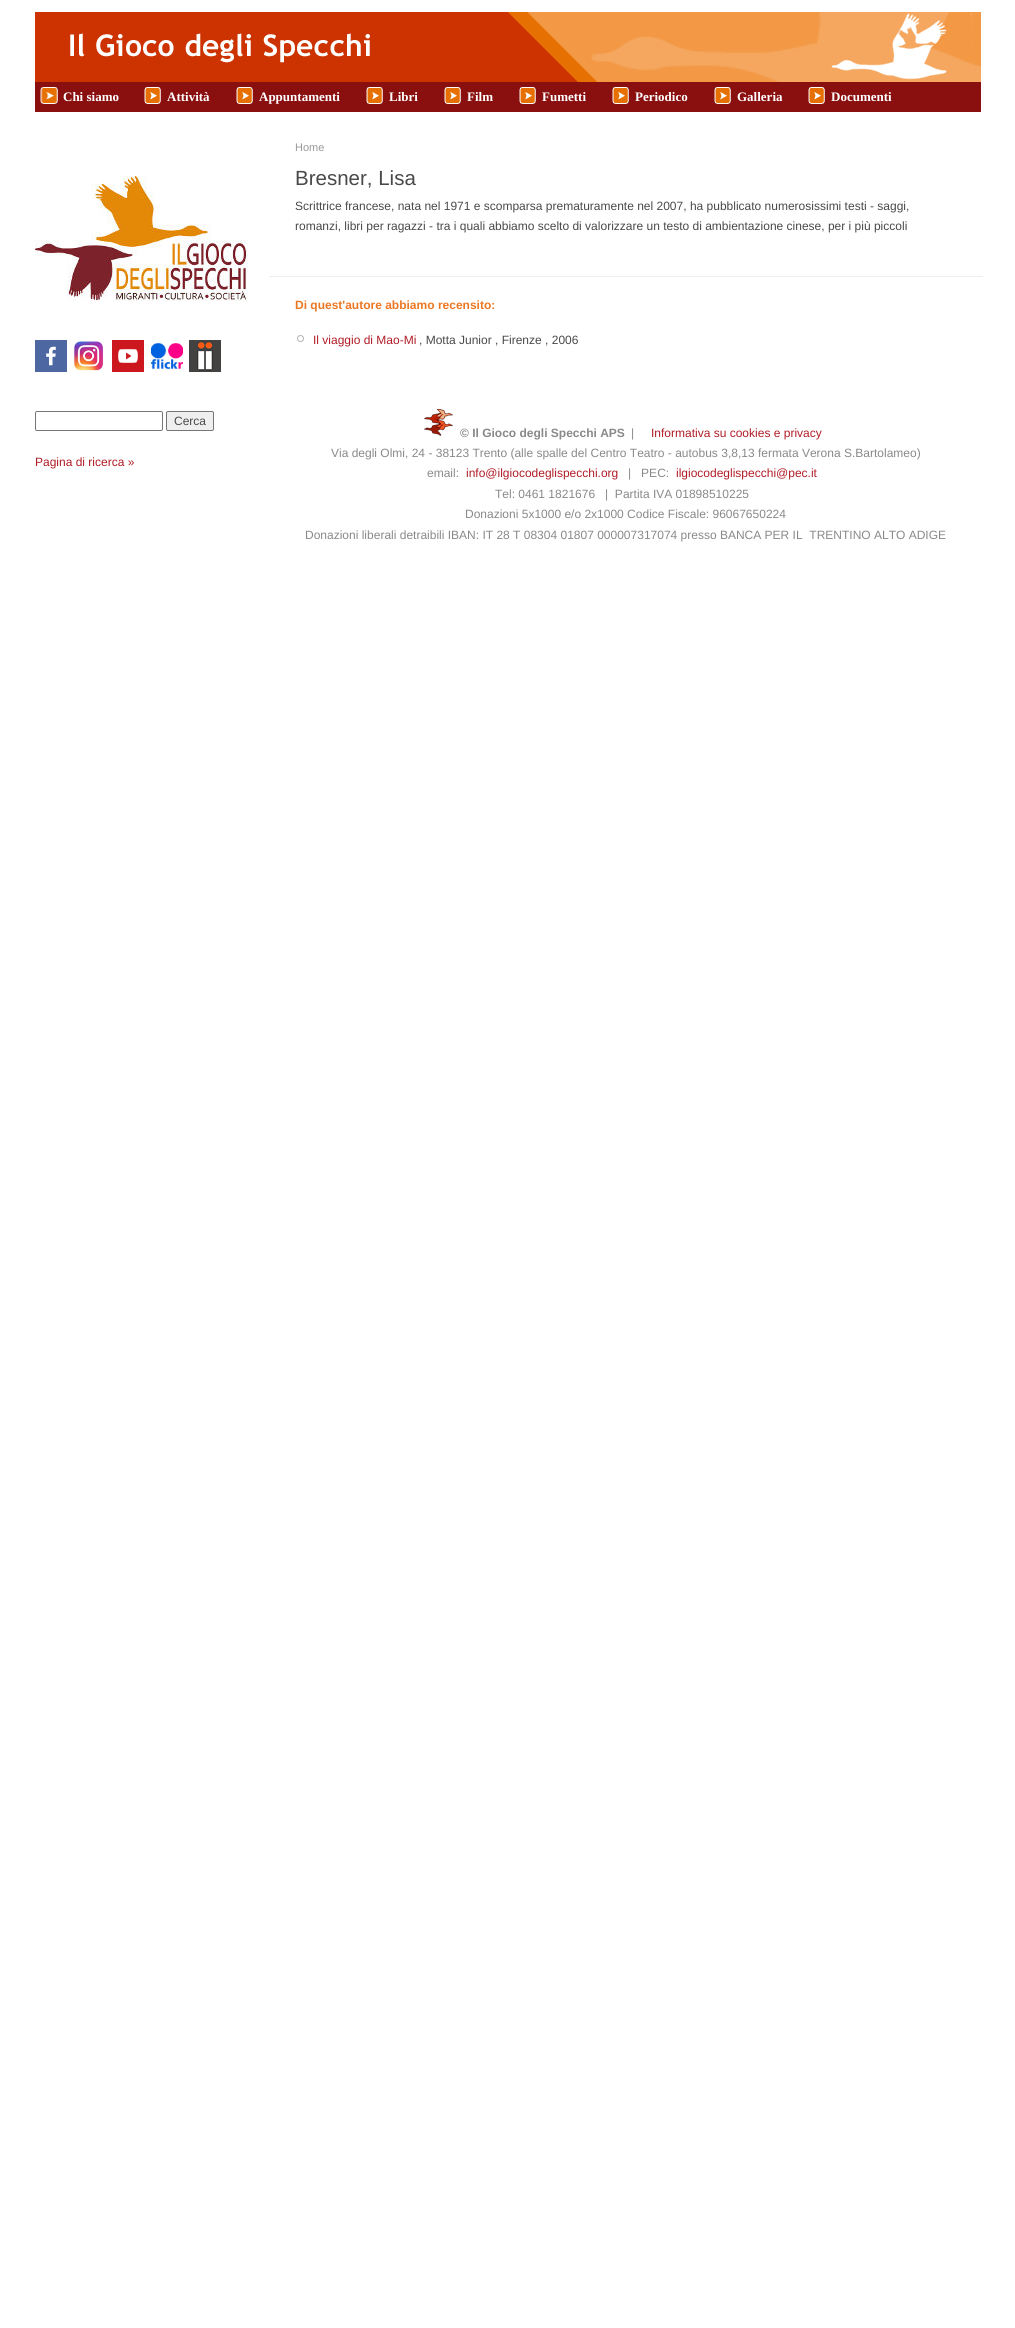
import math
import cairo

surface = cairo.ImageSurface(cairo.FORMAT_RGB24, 1015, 2328)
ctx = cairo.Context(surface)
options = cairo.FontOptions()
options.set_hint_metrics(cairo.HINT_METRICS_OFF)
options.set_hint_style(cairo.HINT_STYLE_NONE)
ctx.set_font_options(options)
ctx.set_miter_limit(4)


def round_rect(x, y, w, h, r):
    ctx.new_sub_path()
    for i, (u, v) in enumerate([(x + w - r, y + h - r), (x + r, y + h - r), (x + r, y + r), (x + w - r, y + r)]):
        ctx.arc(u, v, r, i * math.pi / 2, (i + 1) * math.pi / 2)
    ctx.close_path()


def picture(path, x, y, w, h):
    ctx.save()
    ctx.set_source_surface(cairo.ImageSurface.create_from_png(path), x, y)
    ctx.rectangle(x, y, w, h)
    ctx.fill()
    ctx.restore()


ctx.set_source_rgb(1, 1, 1)
ctx.paint()
picture("img1.png", 35, 12, 946, 70)
ctx.set_source_rgb(0.541, 0.063, 0.063)
ctx.rectangle(35, 82, 946, 30)
ctx.fill()
picture("img2.png", 40, 87, 18, 17)
ctx.select_font_face("Liberation Serif", cairo.FONT_SLANT_NORMAL, cairo.FONT_WEIGHT_BOLD)
ctx.set_font_size(13)
ctx.set_source_rgb(1, 1, 1)
ctx.move_to(63, 101)
ctx.show_text("Chi siamo")
picture("img3.png", 144, 87, 17, 17)
ctx.move_to(167, 101)
ctx.show_text("Attività")
picture("img3.png", 236, 87, 17, 17)
ctx.move_to(259, 101)
ctx.show_text("Appuntamenti")
picture("img3.png", 366, 87, 17, 17)
ctx.move_to(389, 101)
ctx.show_text("Libri")
picture("img3.png", 444, 87, 17, 17)
ctx.move_to(467, 101)
ctx.show_text("Film")
picture("img3.png", 519, 87, 17, 17)
ctx.move_to(542, 101)
ctx.show_text("Fumetti")
picture("img3.png", 612, 87, 17, 17)
ctx.move_to(635, 101)
ctx.show_text("Periodico")
picture("img3.png", 714, 87, 17, 17)
ctx.move_to(737, 101)
ctx.show_text("Galleria")
picture("img3.png", 808, 87, 17, 17)
ctx.move_to(831, 101)
ctx.show_text("Documenti")
picture("img4.png", 35, 176, 213, 125)
picture("img5.png", 35, 340, 32, 32)
picture("img6.png", 73, 340, 31, 31)
picture("img7.png", 112, 340, 32, 32)
picture("img8.png", 151, 343, 32, 27)
picture("img9.png", 189, 340, 32, 32)
round_rect(35.5, 411.5, 127, 19, 1.5)
ctx.set_source_rgb(0.463, 0.463, 0.463)
ctx.set_line_width(1)
ctx.stroke()
ctx.set_source_rgb(0.937, 0.937, 0.937)
round_rect(166.5, 411.5, 47, 19, 1.5)
ctx.fill_preserve()
ctx.set_source_rgb(0.463, 0.463, 0.463)
ctx.stroke()
ctx.select_font_face("Liberation Sans")
ctx.set_font_size(12)
ctx.set_source_rgb(0.286, 0.286, 0.286)
ctx.move_to(174, 425)
ctx.show_text("Cerca")
ctx.set_source_rgb(0.69, 0.11, 0.149)
ctx.move_to(35, 466)
ctx.show_text("Pagina di ricerca »")
ctx.set_font_size(11)
ctx.set_source_rgb(0.6, 0.6, 0.6)
ctx.move_to(295, 151)
ctx.show_text("Home")
ctx.set_font_size(20.5)
ctx.set_source_rgb(0.286, 0.286, 0.286)
ctx.move_to(295, 185)
ctx.show_text("Bresner, Lisa")
ctx.set_source_rgb(0.914, 0.937, 0.953)
ctx.rectangle(269, 276, 714, 1)
ctx.fill()
ctx.set_font_size(12)
ctx.set_source_rgb(0.286, 0.286, 0.286)
ctx.move_to(295, 210)
ctx.show_text("Scrittrice francese, nata nel 1971 e scomparsa prematuramente nel 2007, ha pubblicato numerosissimi testi - saggi,")
ctx.move_to(295, 230)
ctx.show_text("romanzi, libri per ragazzi - tra i quali abbiamo scelto di valorizzare un testo di ambientazione cinese, per i più piccoli")
ctx.select_font_face("Liberation Sans", cairo.FONT_SLANT_NORMAL, cairo.FONT_WEIGHT_BOLD)
ctx.set_source_rgb(0.925, 0.467, 0.133)
ctx.move_to(295, 309)
ctx.show_text("Di quest'autore abbiamo recensito:")
picture("img10.png", 297, 335, 7, 7)
ctx.select_font_face("Liberation Sans")
ctx.set_source_rgb(0.69, 0.11, 0.149)
ctx.move_to(313, 344)
ctx.show_text("Il viaggio di Mao-Mi")
ctx.set_source_rgb(0.286, 0.286, 0.286)
ctx.move_to(419, 344)
ctx.show_text(", Motta Junior , Firenze , 2006")
picture("img11.png", 424, 409, 29, 27)
ctx.select_font_face("Liberation Sans", cairo.FONT_SLANT_NORMAL, cairo.FONT_WEIGHT_BOLD)
ctx.set_source_rgb(0.537, 0.537, 0.537)
ctx.move_to(460, 437)
ctx.show_text("© Il Gioco degli Specchi APS")
ctx.select_font_face("Liberation Sans")
ctx.move_to(631, 437)
ctx.show_text("|")
ctx.set_source_rgb(0.69, 0.11, 0.149)
ctx.move_to(651, 437)
ctx.show_text("Informativa su cookies e privacy")
ctx.set_source_rgb(0.537, 0.537, 0.537)
ctx.move_to(331, 457)
ctx.show_text("Via degli Olmi, 24 - 38123 Trento (alle spalle del Centro Teatro - autobus 3,8,13 fermata Verona S.Bartolameo)")
ctx.move_to(427, 477)
ctx.show_text("email:")
ctx.set_source_rgb(0.69, 0.11, 0.149)
ctx.move_to(466, 477)
ctx.show_text("info@ilgiocodeglispecchi.org")
ctx.set_source_rgb(0.537, 0.537, 0.537)
ctx.move_to(628, 477)
ctx.show_text("|   PEC:")
ctx.set_source_rgb(0.69, 0.11, 0.149)
ctx.move_to(676, 477)
ctx.show_text("ilgiocodeglispecchi@pec.it")
ctx.set_source_rgb(0.537, 0.537, 0.537)
ctx.move_to(495, 498)
ctx.show_text("Tel: 0461 1821676   |  Partita IVA 01898510225")
ctx.move_to(465, 518)
ctx.show_text("Donazioni 5x1000 e/o 2x1000 Codice Fiscale: 96067650224")
ctx.move_to(305, 539)
ctx.show_text("Donazioni liberali detraibili IBAN: IT 28 T 08304 01807 000007317074 presso BANCA PER IL  TRENTINO ALTO ADIGE")
surface.write_to_png("page.png")
